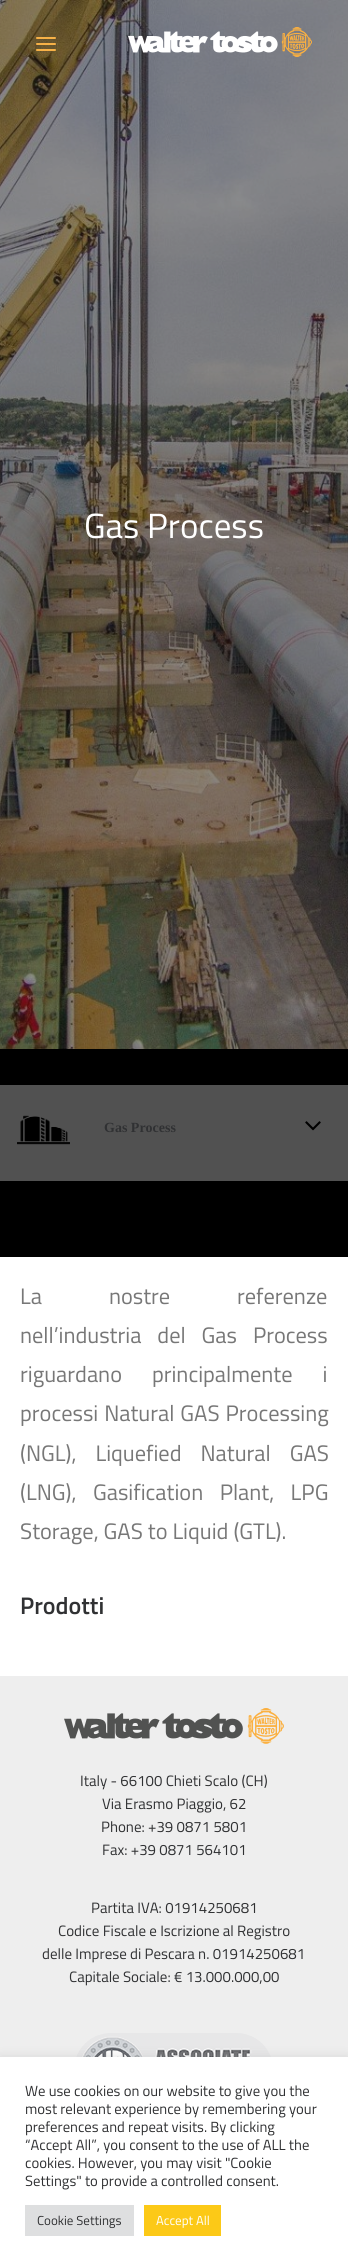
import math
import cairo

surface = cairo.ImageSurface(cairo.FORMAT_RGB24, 348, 2266)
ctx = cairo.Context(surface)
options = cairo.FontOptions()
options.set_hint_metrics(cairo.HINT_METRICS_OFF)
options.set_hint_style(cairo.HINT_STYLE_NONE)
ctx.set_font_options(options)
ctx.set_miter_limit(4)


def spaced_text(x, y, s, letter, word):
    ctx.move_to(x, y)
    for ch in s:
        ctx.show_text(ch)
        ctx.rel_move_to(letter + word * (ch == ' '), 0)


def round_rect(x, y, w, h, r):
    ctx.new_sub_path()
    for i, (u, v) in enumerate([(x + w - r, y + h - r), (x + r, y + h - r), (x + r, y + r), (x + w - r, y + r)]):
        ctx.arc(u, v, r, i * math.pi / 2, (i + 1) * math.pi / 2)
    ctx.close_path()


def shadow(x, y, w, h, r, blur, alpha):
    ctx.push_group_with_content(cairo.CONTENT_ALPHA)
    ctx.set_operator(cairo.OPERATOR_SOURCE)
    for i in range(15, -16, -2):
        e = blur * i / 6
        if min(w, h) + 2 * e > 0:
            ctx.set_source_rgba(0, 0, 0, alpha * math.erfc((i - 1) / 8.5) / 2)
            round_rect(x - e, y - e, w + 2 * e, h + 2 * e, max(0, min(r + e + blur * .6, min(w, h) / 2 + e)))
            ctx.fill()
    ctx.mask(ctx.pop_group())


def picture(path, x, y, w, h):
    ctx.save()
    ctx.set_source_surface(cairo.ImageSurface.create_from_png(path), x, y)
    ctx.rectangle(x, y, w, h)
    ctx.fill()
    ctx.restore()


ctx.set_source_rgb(1, 1, 1)
ctx.paint()
picture("img2.png", 0, 0, 348, 1049)
ctx.set_source_rgb(0.965, 0.694, 0.278)
round_rect(36, 43, 20, 2, 1)
ctx.fill()
round_rect(36, 37, 20, 2, 1)
ctx.fill()
round_rect(36, 49, 20, 2, 1)
ctx.fill()
picture("img1.png", 128, 27, 184, 30)
ctx.select_font_face("Titillium Web")
ctx.set_font_size(35)
ctx.set_source_rgb(1, 1, 1)
ctx.move_to(84, 538)
ctx.show_text("Gas Process")
ctx.set_source_rgb(0, 0, 0)
ctx.rectangle(0, 1049, 348, 208)
ctx.fill()
ctx.set_source_rgb(0.318, 0.318, 0.318)
ctx.rectangle(0, 1085, 348, 96)
ctx.fill()
picture("img3.png", 17, 1115, 53, 30)
ctx.select_font_face("Liberation Serif", cairo.FONT_SLANT_NORMAL, cairo.FONT_WEIGHT_BOLD)
ctx.set_font_size(14)
ctx.set_source_rgb(0.188, 0.192, 0.2)
ctx.move_to(104, 1132)
ctx.show_text("Gas Process")
picture("img4.png", 305, 1121, 16, 10)
ctx.select_font_face("Titillium Web")
ctx.set_font_size(22.4)
ctx.set_source_rgb(0.467, 0.467, 0.467)
spaced_text(20, 1304, "La nostre referenze", 0, 62)
spaced_text(20, 1343, "nell’industria del Gas Process", 0, 11)
spaced_text(20, 1382, "riguardano principalmente i", 0, 25)
spaced_text(20, 1421, "processi Natural GAS Processing", 0, 1)
spaced_text(20, 1461, "(NGL), Liquefied Natural GAS", 0, 14)
spaced_text(20, 1500, "(LNG), Gasification Plant, LPG", 0, 11.5)
ctx.move_to(20, 1539)
ctx.show_text("Storage, GAS to Liquid (GTL).")
ctx.select_font_face("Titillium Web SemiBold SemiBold")
ctx.set_font_size(24)
ctx.set_source_rgb(0.188, 0.192, 0.2)
ctx.move_to(20, 1614)
ctx.show_text("Prodotti")
ctx.set_source_rgb(0.933, 0.933, 0.933)
ctx.rectangle(0, 1676, 348, 381)
ctx.fill()
picture("img5.png", 64, 1708, 220, 36)
ctx.select_font_face("Titillium Web")
ctx.set_font_size(15)
ctx.set_source_rgb(0.188, 0.192, 0.2)
ctx.move_to(80, 1786)
ctx.show_text("Italy - 66100 Chieti Scalo (CH)")
ctx.move_to(102, 1809)
ctx.show_text("Via Erasmo Piaggio, 62")
ctx.move_to(101, 1832)
ctx.show_text("Phone: +39 0871 5801")
ctx.move_to(102, 1855)
ctx.show_text("Fax: +39 0871 564101")
ctx.move_to(91, 1913)
ctx.show_text("Partita IVA: 01914250681")
ctx.move_to(58, 1936)
ctx.show_text("Codice Fiscale e Iscrizione al Registro")
ctx.move_to(42, 1959)
ctx.show_text("delle Imprese di Pescara n. 01914250681")
ctx.move_to(69, 1982)
ctx.show_text("Capitale Sociale: € 13.000.000,00")
picture("img6.png", 76, 2033, 195, 24)
ctx.set_source_rgb(0.675, 0.671, 0.671)
shadow(0, 2056, 348, 209, 0, 5, 0.3)
ctx.set_source_rgb(1, 1, 1)
ctx.rectangle(0, 2057, 348, 209)
ctx.fill()
ctx.set_font_size(14.7)
ctx.set_source_rgb(0.188, 0.192, 0.2)
ctx.move_to(25, 2096)
ctx.show_text("We use cookies on our website to give you the")
ctx.move_to(25, 2114)
ctx.show_text("most relevant experience by remembering your")
ctx.move_to(25, 2132)
ctx.show_text("preferences and repeat visits. By clicking")
ctx.move_to(25, 2150)
ctx.show_text("“Accept All”, you consent to the use of ALL the")
ctx.move_to(25, 2168)
ctx.show_text("cookies. However, you may visit \"Cookie")
ctx.move_to(25, 2186)
ctx.show_text("Settings\" to provide a controlled consent.")
ctx.set_source_rgb(0.871, 0.875, 0.878)
ctx.rectangle(25, 2205, 109, 31)
ctx.fill()
ctx.set_font_size(13)
ctx.set_source_rgb(0.188, 0.192, 0.2)
ctx.move_to(37, 2225)
ctx.show_text("Cookie Settings")
ctx.set_source_rgb(0.988, 0.788, 0.09)
ctx.rectangle(144, 2205, 77, 31)
ctx.fill()
ctx.set_source_rgb(1, 1, 1)
ctx.move_to(156, 2225)
ctx.show_text("Accept All")
surface.write_to_png("page.png")
